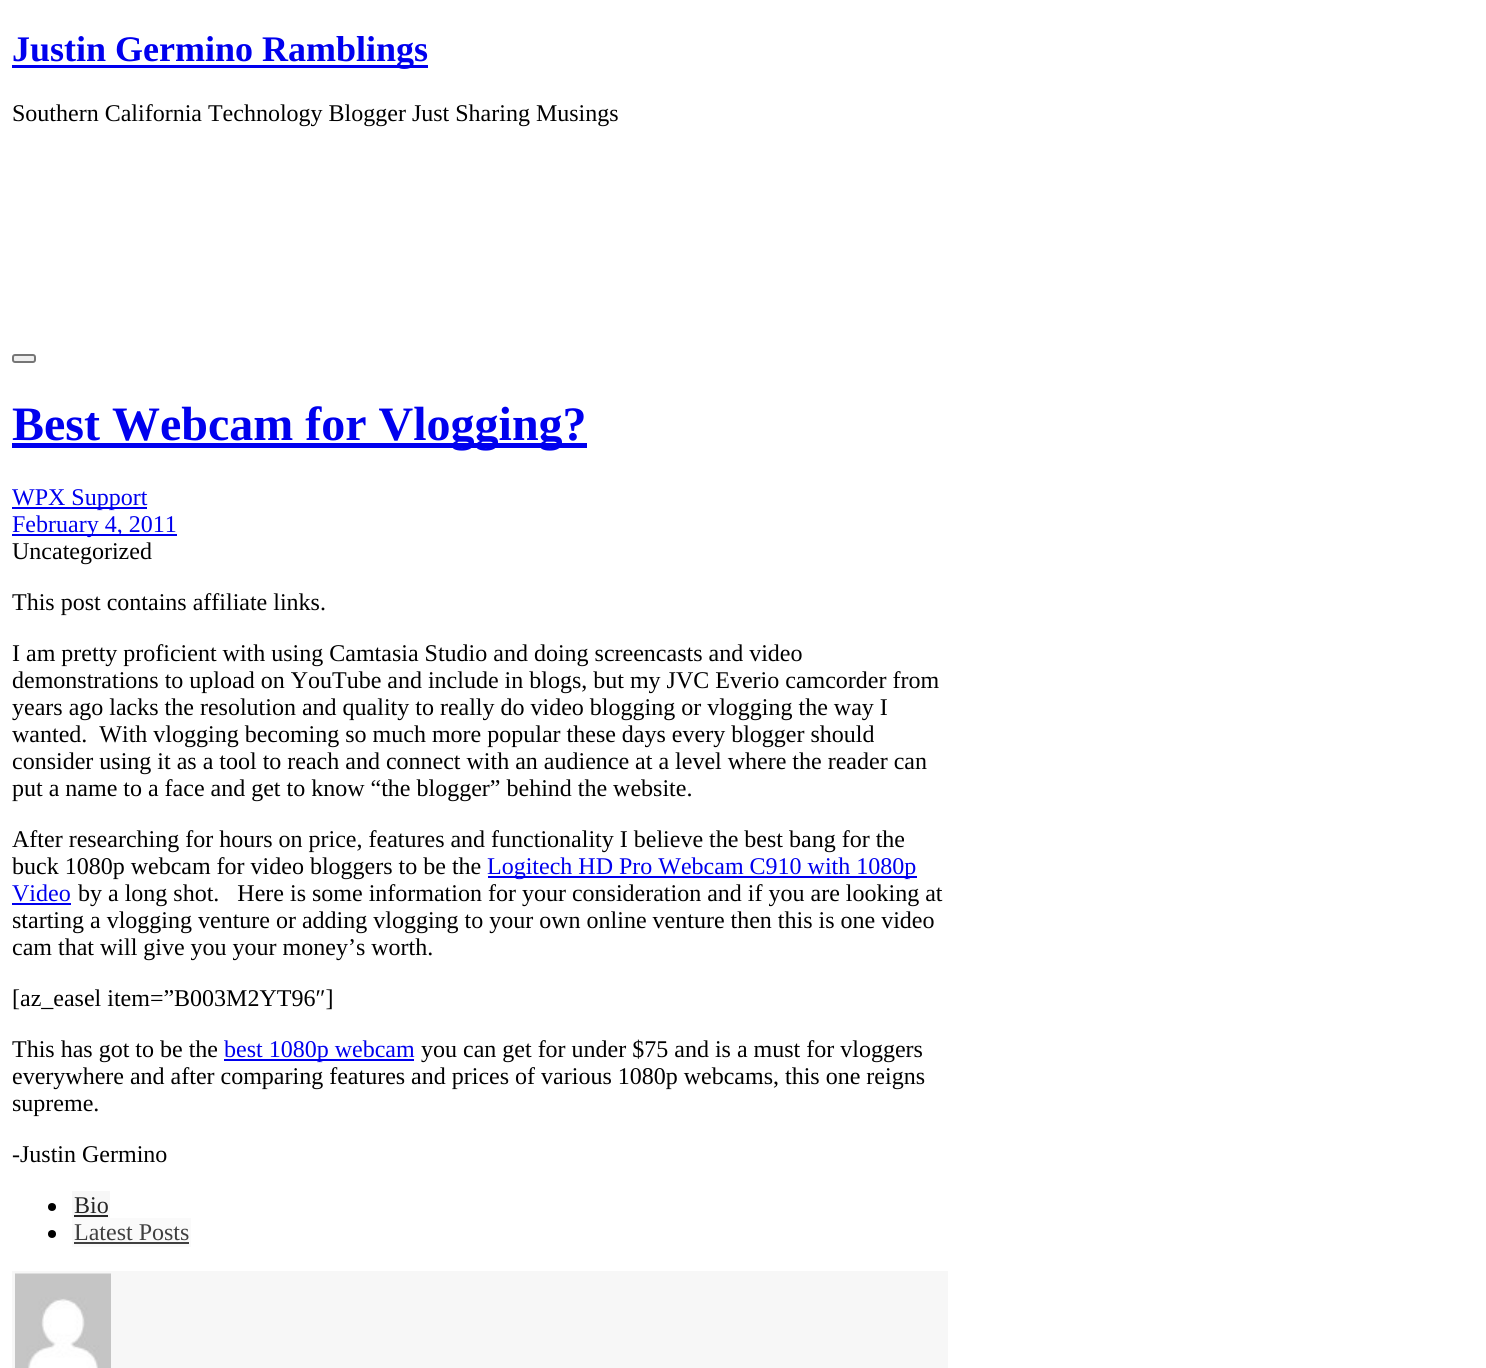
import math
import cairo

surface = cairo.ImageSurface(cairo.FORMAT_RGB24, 1486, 1368)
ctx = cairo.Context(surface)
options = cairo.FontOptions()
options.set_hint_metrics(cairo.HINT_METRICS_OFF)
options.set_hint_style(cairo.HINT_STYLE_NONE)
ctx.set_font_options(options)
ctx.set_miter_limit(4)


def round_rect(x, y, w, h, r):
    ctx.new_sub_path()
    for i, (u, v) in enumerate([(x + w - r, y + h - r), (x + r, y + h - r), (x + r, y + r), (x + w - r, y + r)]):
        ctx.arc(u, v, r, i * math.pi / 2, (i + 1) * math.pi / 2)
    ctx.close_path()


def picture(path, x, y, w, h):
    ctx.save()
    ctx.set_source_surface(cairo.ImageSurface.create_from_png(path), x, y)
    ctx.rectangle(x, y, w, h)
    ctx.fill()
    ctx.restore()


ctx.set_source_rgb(1, 1, 1)
ctx.paint()
ctx.set_source_rgb(0, 0, 0.933)
ctx.rectangle(12, 65, 416, 3)
ctx.fill()
ctx.select_font_face("Liberation Serif", cairo.FONT_SLANT_NORMAL, cairo.FONT_WEIGHT_BOLD)
ctx.set_font_size(36)
ctx.move_to(12, 61)
ctx.show_text("Justin Germino Ramblings")
ctx.select_font_face("Liberation Serif")
ctx.set_font_size(24)
ctx.set_source_rgb(0, 0, 0)
ctx.move_to(12, 121)
ctx.show_text("Southern California Technology Blogger Just Sharing Musings")
ctx.set_source_rgb(0.937, 0.937, 0.937)
round_rect(13, 355, 22, 7, 2)
ctx.fill_preserve()
ctx.set_source_rgb(0.463, 0.463, 0.463)
ctx.stroke()
ctx.set_source_rgb(0, 0, 0.933)
ctx.rectangle(12, 443, 575, 5)
ctx.fill()
ctx.select_font_face("Liberation Serif", cairo.FONT_SLANT_NORMAL, cairo.FONT_WEIGHT_BOLD)
ctx.set_font_size(48)
ctx.move_to(12, 440)
ctx.show_text("Best Webcam for Vlogging?")
ctx.rectangle(12, 507, 135, 2)
ctx.fill()
ctx.select_font_face("Liberation Serif")
ctx.set_font_size(24)
ctx.move_to(12, 505)
ctx.show_text("WPX Support")
ctx.rectangle(12, 534, 165, 2)
ctx.fill()
ctx.move_to(12, 532)
ctx.show_text("February 4, 2011")
ctx.set_source_rgb(0, 0, 0)
ctx.move_to(12, 559)
ctx.show_text("Uncategorized")
ctx.move_to(12, 610)
ctx.show_text("This post contains affiliate links.")
ctx.move_to(12, 661)
ctx.show_text("I am pretty proficient with using Camtasia Studio and doing screencasts and video")
ctx.move_to(12, 688)
ctx.show_text("demonstrations to upload on YouTube and include in blogs, but my JVC Everio camcorder from")
ctx.move_to(12, 715)
ctx.show_text("years ago lacks the resolution and quality to really do video blogging or vlogging the way I")
ctx.move_to(12, 742)
ctx.show_text("wanted.  With vlogging becoming so much more popular these days every blogger should")
ctx.move_to(12, 769)
ctx.show_text("consider using it as a tool to reach and connect with an audience at a level where the reader can")
ctx.move_to(12, 796)
ctx.show_text("put a name to a face and get to know “the blogger” behind the website.")
ctx.move_to(12, 847)
ctx.show_text("After researching for hours on price, features and functionality I believe the best bang for the")
ctx.move_to(12, 874)
ctx.show_text("buck 1080p webcam for video bloggers to be the")
ctx.set_source_rgb(0, 0, 0.933)
ctx.rectangle(488, 876, 429, 2)
ctx.fill()
ctx.move_to(487, 874)
ctx.show_text("Logitech HD Pro Webcam C910 with 1080p")
ctx.move_to(12, 901)
ctx.show_text("Video")
ctx.rectangle(12, 903, 59, 2)
ctx.fill()
ctx.set_source_rgb(0, 0, 0)
ctx.move_to(78, 901)
ctx.show_text("by a long shot.   Here is some information for your consideration and if you are looking at")
ctx.move_to(12, 928)
ctx.show_text("starting a vlogging venture or adding vlogging to your own online venture then this is one video")
ctx.move_to(12, 955)
ctx.show_text("cam that will give you your money’s worth.")
ctx.move_to(12, 1006)
ctx.show_text("[az_easel item=”B003M2YT96″]")
ctx.move_to(12, 1057)
ctx.show_text("This has got to be the")
ctx.set_source_rgb(0, 0, 0.933)
ctx.rectangle(224, 1059, 190, 2)
ctx.fill()
ctx.move_to(224, 1057)
ctx.show_text("best 1080p webcam")
ctx.set_source_rgb(0, 0, 0)
ctx.move_to(421, 1057)
ctx.show_text("you can get for under $75 and is a must for vloggers")
ctx.move_to(12, 1084)
ctx.show_text("everywhere and after comparing features and prices of various 1080p webcams, this one reigns")
ctx.move_to(12, 1111)
ctx.show_text("supreme.")
ctx.move_to(12, 1162)
ctx.show_text("-Justin Germino")
ctx.new_path()
ctx.arc(52, 1207, 4, 0, 2 * math.pi)
ctx.fill()
ctx.set_source_rgb(0.965, 0.965, 0.965)
ctx.rectangle(74, 1191, 36, 27)
ctx.fill()
ctx.set_source_rgb(0.145, 0.145, 0.145)
ctx.move_to(74, 1213)
ctx.show_text("Bio")
ctx.set_source_rgb(0.965, 0.965, 0.965)
ctx.rectangle(72, 1191, 2, 29)
ctx.fill()
ctx.set_source_rgb(0.145, 0.145, 0.145)
ctx.rectangle(74, 1215, 34, 2)
ctx.fill()
ctx.set_source_rgb(0, 0, 0)
ctx.arc(52, 1234, 4, 0, 2 * math.pi)
ctx.fill()
ctx.set_source_rgb(0.98, 0.98, 0.98)
ctx.rectangle(72, 1218, 119, 29)
ctx.fill()
ctx.set_source_rgb(0.251, 0.251, 0.251)
ctx.move_to(74, 1240)
ctx.show_text("Latest Posts")
ctx.rectangle(74, 1242, 115, 2)
ctx.fill()
ctx.set_source_rgb(0.965, 0.965, 0.965)
ctx.rectangle(12, 1271, 936, 97)
ctx.fill()
picture("img1.png", 15, 1273, 96, 95)
surface.write_to_png("page.png")
